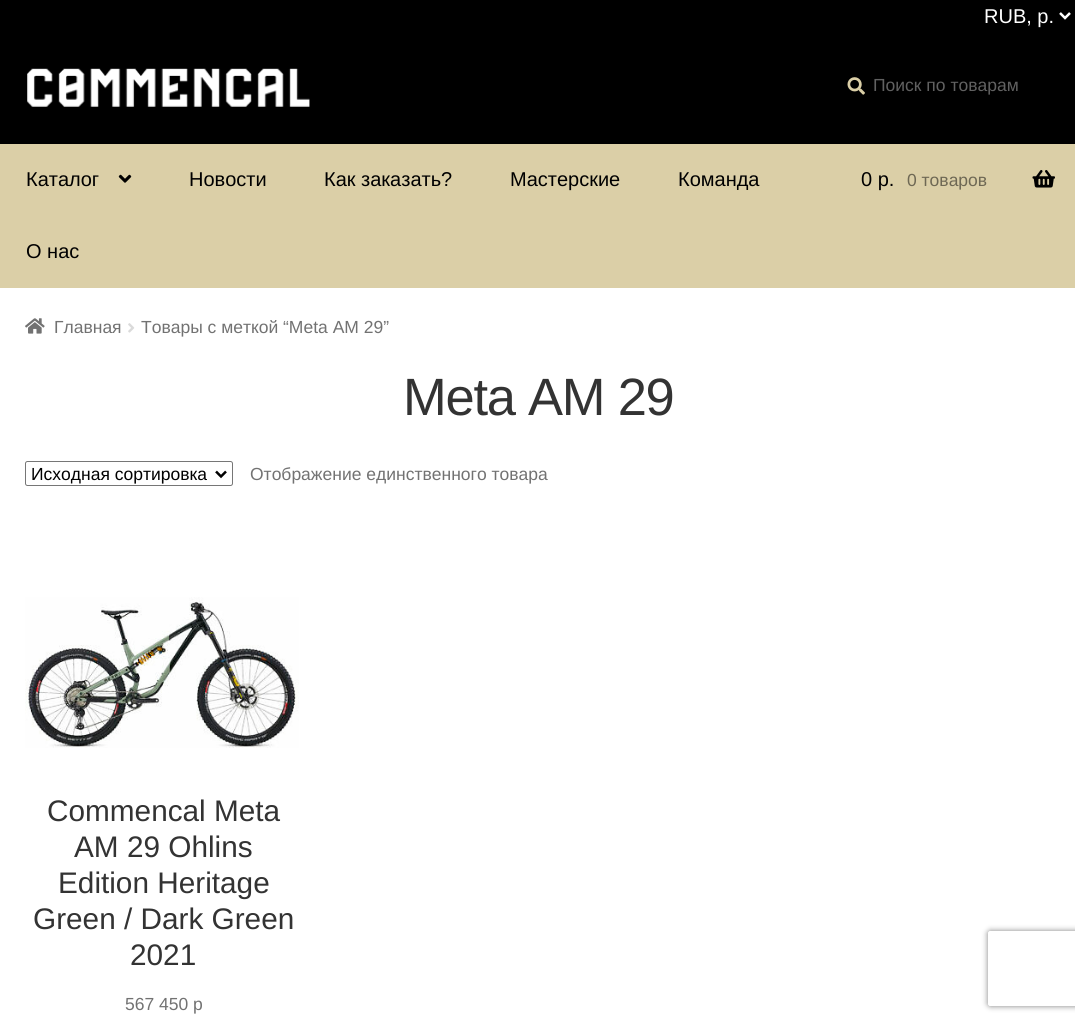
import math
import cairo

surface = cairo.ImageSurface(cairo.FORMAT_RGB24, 1075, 1023)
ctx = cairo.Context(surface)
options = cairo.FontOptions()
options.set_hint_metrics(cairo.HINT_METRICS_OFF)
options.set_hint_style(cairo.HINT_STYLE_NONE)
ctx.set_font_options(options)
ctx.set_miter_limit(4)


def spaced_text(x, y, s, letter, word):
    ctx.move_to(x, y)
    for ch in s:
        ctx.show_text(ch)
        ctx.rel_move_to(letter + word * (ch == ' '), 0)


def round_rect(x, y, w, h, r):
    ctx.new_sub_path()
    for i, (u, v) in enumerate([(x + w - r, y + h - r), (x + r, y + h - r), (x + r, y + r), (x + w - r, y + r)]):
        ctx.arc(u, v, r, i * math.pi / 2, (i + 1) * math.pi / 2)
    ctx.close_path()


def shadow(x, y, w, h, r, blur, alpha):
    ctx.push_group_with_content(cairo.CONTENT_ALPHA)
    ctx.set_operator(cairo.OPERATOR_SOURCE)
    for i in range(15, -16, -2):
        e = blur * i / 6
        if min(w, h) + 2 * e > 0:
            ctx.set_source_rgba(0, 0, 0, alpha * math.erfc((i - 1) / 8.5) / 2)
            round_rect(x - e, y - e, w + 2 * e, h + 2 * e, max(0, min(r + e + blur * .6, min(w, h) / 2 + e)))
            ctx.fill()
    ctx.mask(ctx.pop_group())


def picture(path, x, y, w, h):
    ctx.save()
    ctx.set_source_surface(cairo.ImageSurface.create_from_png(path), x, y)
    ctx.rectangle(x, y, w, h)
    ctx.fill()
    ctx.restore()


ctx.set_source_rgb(1, 1, 1)
ctx.paint()
ctx.set_source_rgb(0, 0, 0)
ctx.rectangle(0, 0, 1075, 144)
ctx.fill()
ctx.new_path()
ctx.move_to(1060, 13)
ctx.line_to(1065, 18)
ctx.line_to(1070, 13)
ctx.set_source_rgb(1, 1, 1)
ctx.set_line_width(2.5)
ctx.stroke()
ctx.select_font_face("Liberation Sans")
ctx.set_font_size(20)
ctx.move_to(984, 23)
ctx.show_text("RUB, р.")
picture("img1.png", 27, 68, 283, 39)
picture("img2.png", 847, 77, 18, 18)
ctx.set_font_size(17.5)
ctx.set_source_rgb(0.38, 0.38, 0.38)
ctx.move_to(873, 91)
ctx.show_text("Поиск по товарам")
ctx.set_source_rgb(0.859, 0.812, 0.655)
ctx.rectangle(0, 144, 1075, 144)
ctx.fill()
ctx.set_font_size(20)
ctx.set_source_rgb(0, 0, 0)
ctx.move_to(26, 186)
ctx.show_text("Каталог")
picture("img3.png", 118, 174, 14, 9)
ctx.move_to(189, 186)
ctx.show_text("Новости")
ctx.move_to(324, 186)
ctx.show_text("Как заказать?")
ctx.move_to(510, 186)
ctx.show_text("Мастерские")
ctx.move_to(678, 186)
ctx.show_text("Команда")
ctx.move_to(26, 258)
ctx.show_text("О нас")
ctx.move_to(861, 186)
ctx.show_text("0 р.")
ctx.set_font_size(17.5)
ctx.set_source_rgb(0.431, 0.408, 0.329)
ctx.move_to(907, 186)
ctx.show_text("0 товаров")
picture("img4.png", 1032, 170, 23, 18)
picture("img5.png", 25, 318, 20, 16)
ctx.set_source_rgb(0.447, 0.447, 0.447)
ctx.move_to(54, 333)
ctx.show_text("Главная")
picture("img6.png", 128, 323, 7, 10)
ctx.move_to(141, 333)
ctx.show_text("Товары с меткой “Meta AM 29”")
ctx.set_font_size(52.5)
ctx.set_source_rgb(0.2, 0.2, 0.2)
spaced_text(403, 415, "Meta AM 29", -1.25, 0)
round_rect(25.5, 461.5, 207, 24, 2)
ctx.set_source_rgb(0.463, 0.463, 0.463)
ctx.set_line_width(1)
ctx.stroke()
ctx.new_path()
ctx.move_to(216, 471.5)
ctx.line_to(221, 476.5)
ctx.line_to(226, 471.5)
ctx.set_source_rgb(0, 0, 0)
ctx.set_line_width(2.5)
ctx.stroke()
ctx.set_font_size(17.5)
ctx.move_to(31, 480)
ctx.show_text("Исходная сортировка")
ctx.set_source_rgb(0.447, 0.447, 0.447)
ctx.move_to(250, 480)
ctx.show_text("Отображение единственного товара")
picture("img7.png", 25, 597, 274, 151)
ctx.set_font_size(29.75)
ctx.set_source_rgb(0.2, 0.2, 0.2)
ctx.move_to(47, 821)
ctx.show_text("Commencal Meta")
ctx.move_to(74, 857)
ctx.show_text("AM 29 Ohlins")
ctx.move_to(58, 893)
ctx.show_text("Edition Heritage")
ctx.move_to(33, 929)
ctx.show_text("Green / Dark Green")
ctx.move_to(130, 965)
ctx.show_text("2021")
ctx.set_font_size(17.5)
ctx.set_source_rgb(0.447, 0.447, 0.447)
ctx.move_to(125, 1010)
ctx.show_text("567 450 р")
ctx.save()
ctx.set_fill_rule(cairo.FILL_RULE_EVEN_ODD)
ctx.new_path()
ctx.move_to(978, 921)
ctx.line_to(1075, 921)
ctx.line_to(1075, 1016)
ctx.line_to(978, 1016)
ctx.close_path()
ctx.move_to(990.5, 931)
ctx.line_to(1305.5, 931)
ctx.curve_to(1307, 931, 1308, 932, 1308, 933.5)
ctx.line_to(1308, 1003.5)
ctx.curve_to(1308, 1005, 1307, 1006, 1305.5, 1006)
ctx.line_to(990.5, 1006)
ctx.curve_to(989, 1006, 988, 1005, 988, 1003.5)
ctx.line_to(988, 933.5)
ctx.curve_to(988, 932, 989, 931, 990.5, 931)
ctx.close_path()
ctx.clip()
ctx.set_source_rgb(0.502, 0.502, 0.502)
shadow(988, 931, 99, 75, 2.5, 3, 1)
ctx.restore()
surface.write_to_png("page.png")
